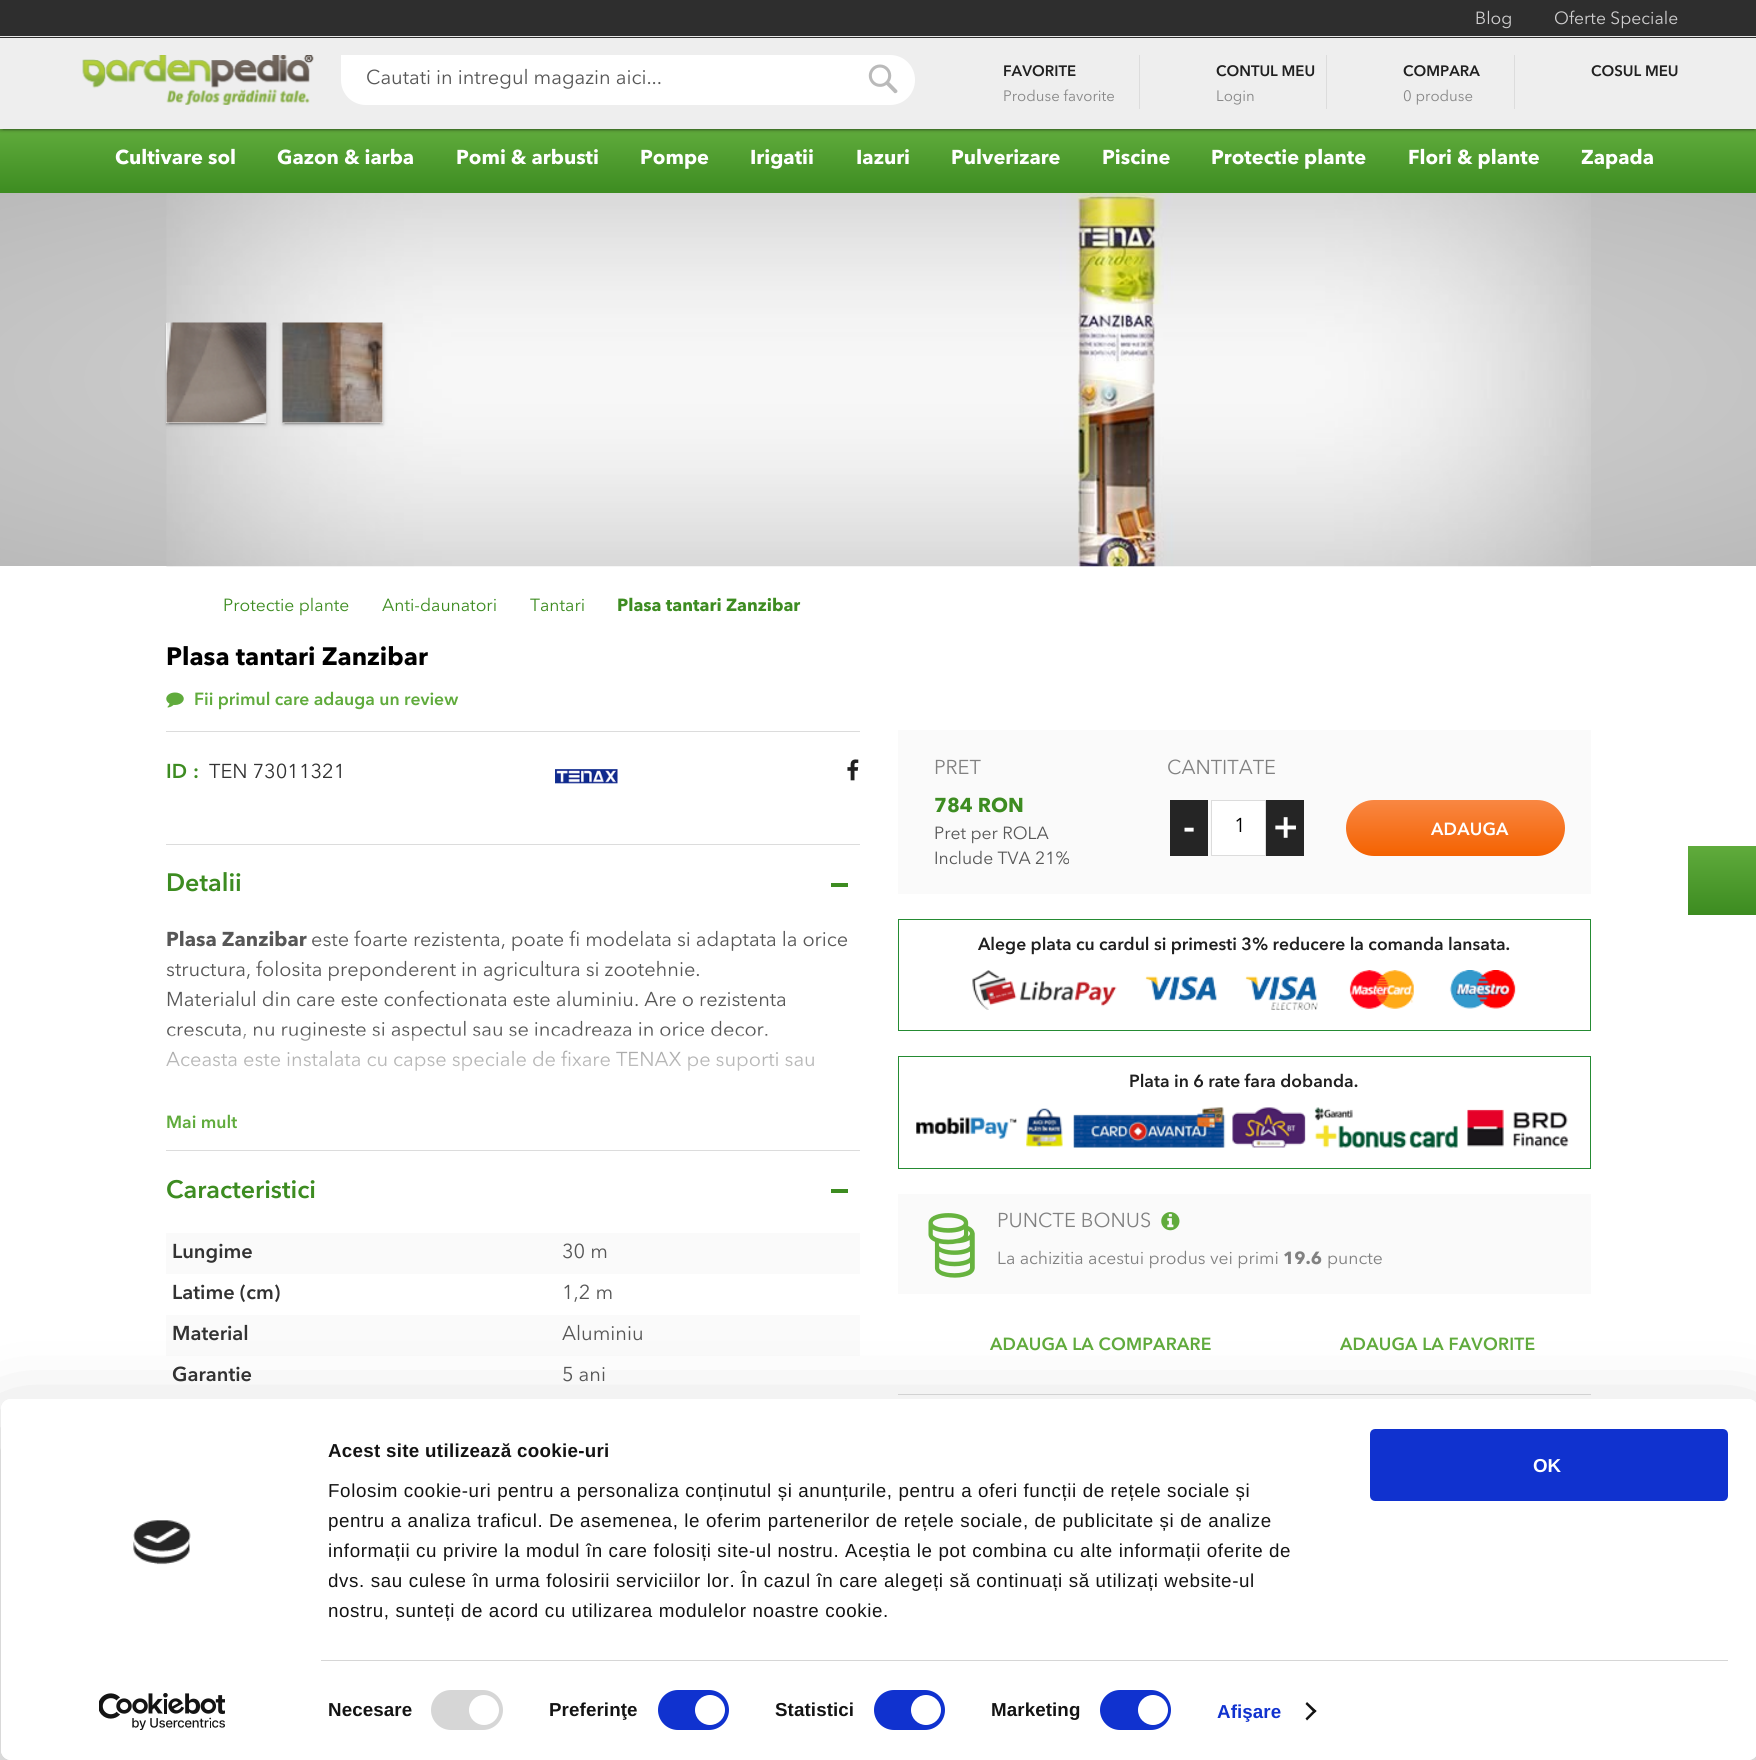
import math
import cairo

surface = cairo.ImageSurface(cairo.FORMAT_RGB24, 1756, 1760)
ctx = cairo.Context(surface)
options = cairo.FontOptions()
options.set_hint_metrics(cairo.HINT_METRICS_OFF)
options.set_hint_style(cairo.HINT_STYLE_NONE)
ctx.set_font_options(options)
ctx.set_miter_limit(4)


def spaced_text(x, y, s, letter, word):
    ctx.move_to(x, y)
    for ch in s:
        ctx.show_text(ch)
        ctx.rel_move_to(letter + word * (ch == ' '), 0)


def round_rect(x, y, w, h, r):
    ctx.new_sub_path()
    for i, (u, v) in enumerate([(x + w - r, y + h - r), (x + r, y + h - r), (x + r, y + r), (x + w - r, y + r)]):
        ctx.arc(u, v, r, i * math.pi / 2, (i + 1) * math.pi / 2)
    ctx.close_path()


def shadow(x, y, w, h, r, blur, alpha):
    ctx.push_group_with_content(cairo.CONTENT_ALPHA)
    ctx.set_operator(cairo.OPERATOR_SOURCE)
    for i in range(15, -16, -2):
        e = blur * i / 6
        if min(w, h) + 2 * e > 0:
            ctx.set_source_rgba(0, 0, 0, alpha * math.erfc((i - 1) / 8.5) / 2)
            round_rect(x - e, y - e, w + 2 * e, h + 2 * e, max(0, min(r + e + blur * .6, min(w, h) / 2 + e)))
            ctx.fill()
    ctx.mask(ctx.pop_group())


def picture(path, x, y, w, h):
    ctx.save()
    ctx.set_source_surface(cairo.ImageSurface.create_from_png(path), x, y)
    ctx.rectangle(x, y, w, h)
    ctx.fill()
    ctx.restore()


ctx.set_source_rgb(1, 1, 1)
ctx.paint()
gradient = cairo.LinearGradient(878, 129, 878, 193)
gradient.add_color_stop_rgba(0, 0.376, 0.671, 0.235, 1)
gradient.add_color_stop_rgba(1, 0.239, 0.549, 0.129, 1)
ctx.set_source(gradient)
ctx.rectangle(0, 129, 1756, 64)
ctx.fill()
ctx.set_source_rgb(0, 0, 0)
shadow(0, 1, 1756, 129, 0, 3, 0.12)
shadow(3, 6, 1751, 124, 0, 0.5, 0.2)
shadow(0, 3, 1756, 128, 0, 1, 0.14)
ctx.set_source_rgb(0.933, 0.933, 0.933)
ctx.rectangle(0, 38, 1756, 91)
ctx.fill()
ctx.set_source_rgb(0.18, 0.18, 0.18)
ctx.rectangle(0, 0, 1756, 38)
ctx.fill()
ctx.set_source_rgb(0.91, 0.91, 0.91)
ctx.rectangle(0, 36, 1756, 1)
ctx.fill()
ctx.select_font_face("Avenir Next")
ctx.set_font_size(17.5)
ctx.set_source_rgb(0.812, 0.808, 0.812)
ctx.move_to(1475, 24)
ctx.show_text("Blog")
ctx.move_to(1554, 24)
ctx.show_text("Oferte Speciale")
picture("img1.png", 82, 55, 232, 50)
ctx.set_source_rgb(1, 1, 1)
ctx.new_path()
ctx.move_to(341, 55)
ctx.line_to(890, 55)
ctx.curve_to(904, 55, 915, 66, 915, 80)
ctx.curve_to(915, 94, 904, 105, 890, 105)
ctx.line_to(366, 105)
ctx.curve_to(352, 105, 341, 94, 341, 80)
ctx.close_path()
ctx.fill()
ctx.set_font_size(20)
ctx.set_source_rgb(0.341, 0.341, 0.341)
ctx.move_to(366, 84)
ctx.show_text("Cautati in intregul magazin aici...")
picture("img2.png", 868, 64, 30, 30)
ctx.set_source_rgb(0.863, 0.863, 0.863)
ctx.rectangle(1139, 55, 1, 54)
ctx.fill()
ctx.select_font_face("Avenir Next SemiBold")
ctx.set_font_size(15)
ctx.set_source_rgb(0.125, 0.125, 0.125)
ctx.move_to(1003, 76)
ctx.show_text("FAVORITE")
ctx.select_font_face("Avenir Next")
ctx.set_source_rgb(0.529, 0.529, 0.529)
ctx.move_to(1003, 101)
ctx.show_text("Produse favorite")
ctx.set_source_rgb(0.863, 0.863, 0.863)
ctx.rectangle(1326, 55, 1, 54)
ctx.fill()
ctx.select_font_face("Avenir Next SemiBold")
ctx.set_source_rgb(0.125, 0.125, 0.125)
ctx.move_to(1216, 76)
ctx.show_text("CONTUL MEU")
ctx.select_font_face("Avenir Next")
ctx.set_source_rgb(0.529, 0.529, 0.529)
ctx.move_to(1216, 101)
ctx.show_text("Login")
ctx.set_source_rgb(0.863, 0.863, 0.863)
ctx.rectangle(1514, 55, 1, 54)
ctx.fill()
ctx.select_font_face("Avenir Next SemiBold")
ctx.set_source_rgb(0.125, 0.125, 0.125)
ctx.move_to(1403, 76)
ctx.show_text("COMPARA")
ctx.select_font_face("Avenir Next")
ctx.set_source_rgb(0.529, 0.529, 0.529)
ctx.move_to(1403, 101)
ctx.show_text("0 produse")
ctx.select_font_face("Avenir Next SemiBold")
ctx.set_source_rgb(0.125, 0.125, 0.125)
ctx.move_to(1591, 76)
ctx.show_text("COSUL MEU")
ctx.select_font_face("Avenir Next", cairo.FONT_SLANT_NORMAL, cairo.FONT_WEIGHT_BOLD)
ctx.set_font_size(20)
ctx.set_source_rgb(1, 1, 1)
ctx.move_to(115, 164)
ctx.show_text("Cultivare sol")
ctx.move_to(277, 164)
ctx.show_text("Gazon & iarba")
ctx.move_to(456, 164)
ctx.show_text("Pomi & arbusti")
ctx.move_to(640, 164)
ctx.show_text("Pompe")
ctx.move_to(750, 164)
ctx.show_text("Irigatii")
ctx.move_to(856, 164)
ctx.show_text("Iazuri")
ctx.move_to(951, 164)
ctx.show_text("Pulverizare")
ctx.move_to(1102, 164)
ctx.show_text("Piscine")
ctx.move_to(1211, 164)
ctx.show_text("Protectie plante")
ctx.move_to(1408, 164)
ctx.show_text("Flori & plante")
ctx.move_to(1581, 164)
ctx.show_text("Zapada")
gradient = cairo.RadialGradient(0, 0, 0, 0, 0, 1)
gradient.set_matrix(cairo.Matrix(1 / 1242, 0, 0, 1 / 265, -1 * 878 / 1242, -1 * 379 / 265))
gradient.add_color_stop_rgba(0, 0.867, 0.867, 0.867, 1)
gradient.add_color_stop_rgba(1, 0.729, 0.729, 0.729, 1)
ctx.set_source(gradient)
ctx.rectangle(0, 193, 1756, 373)
ctx.fill()
picture("img3.png", 166, 193, 1425, 374)
ctx.save()
ctx.rectangle(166, 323, 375, 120)
ctx.clip()
ctx.set_source_rgb(0, 0, 0)
shadow(166, 324, 100, 100, 0, 3, 0.12)
ctx.restore()
ctx.set_source_rgb(0, 0, 0)
shadow(169, 329, 95, 95, 0, 0.5, 0.2)
shadow(166, 325, 100, 100, 0, 1, 0.14)
ctx.set_source_rgb(1, 1, 1)
ctx.rectangle(166, 323, 100, 100)
ctx.fill()
picture("img4.png", 166, 322, 101, 101)
ctx.save()
ctx.rectangle(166, 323, 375, 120)
ctx.clip()
ctx.set_source_rgb(0, 0, 0)
shadow(283, 324, 100, 100, 0, 3, 0.12)
ctx.restore()
ctx.set_source_rgb(0, 0, 0)
shadow(285, 329, 95, 95, 0, 0.5, 0.2)
shadow(283, 325, 100, 100, 0, 1, 0.14)
ctx.set_source_rgb(1, 1, 1)
ctx.rectangle(283, 323, 100, 100)
ctx.fill()
picture("img5.png", 282, 322, 101, 101)
ctx.select_font_face("Avenir Next")
ctx.set_font_size(17.5)
ctx.set_source_rgb(0.239, 0.549, 0.129)
ctx.move_to(223, 611)
ctx.show_text("Protectie plante")
ctx.move_to(382, 611)
ctx.show_text("Anti-daunatori")
ctx.move_to(530, 611)
ctx.show_text("Tantari")
ctx.select_font_face("Avenir Next", cairo.FONT_SLANT_NORMAL, cairo.FONT_WEIGHT_BOLD)
ctx.move_to(617, 611)
ctx.show_text("Plasa tantari Zanzibar")
ctx.set_font_size(25)
ctx.set_source_rgb(0, 0, 0)
ctx.move_to(166, 665)
ctx.show_text("Plasa tantari Zanzibar")
picture("img6.png", 166, 692, 18, 16)
ctx.select_font_face("Avenir Next SemiBold")
ctx.set_font_size(17.5)
ctx.set_source_rgb(0.376, 0.671, 0.235)
ctx.move_to(194, 705)
ctx.show_text("Fii primul care adauga un review")
ctx.set_source_rgb(0.863, 0.863, 0.863)
ctx.rectangle(166, 731, 694, 1)
ctx.fill()
ctx.rectangle(166, 844, 694, 1)
ctx.fill()
ctx.set_font_size(20)
ctx.set_source_rgb(0.239, 0.549, 0.129)
ctx.move_to(166, 778)
ctx.show_text("ID")
ctx.move_to(193, 778)
ctx.show_text(":")
ctx.select_font_face("Avenir Next")
ctx.set_source_rgb(0.2, 0.2, 0.2)
ctx.move_to(209, 778)
ctx.show_text("TEN 73011321")
picture("img7.png", 555, 769, 63, 15)
picture("img8.png", 847, 759, 12, 22)
ctx.select_font_face("Avenir Next SemiBold")
ctx.set_font_size(25)
ctx.set_source_rgb(0.239, 0.549, 0.129)
ctx.move_to(166, 891)
ctx.show_text("Detalii")
ctx.rectangle(831, 883, 17, 4)
ctx.fill()
ctx.set_source_rgb(0.863, 0.863, 0.863)
ctx.rectangle(166, 1150, 694, 1)
ctx.fill()
ctx.select_font_face("Avenir Next", cairo.FONT_SLANT_NORMAL, cairo.FONT_WEIGHT_BOLD)
ctx.set_font_size(20)
ctx.set_source_rgb(0.341, 0.341, 0.341)
ctx.move_to(166, 946)
ctx.show_text("Plasa Zanzibar")
ctx.select_font_face("Avenir Next")
ctx.move_to(311, 946)
ctx.show_text("este foarte rezistenta, poate fi modelata si adaptata la orice")
ctx.move_to(166, 976)
ctx.show_text("structura, folosita preponderent in agricultura si zootehnie.")
ctx.move_to(166, 1006)
ctx.show_text("Materialul din care este confectionata este aluminiu. Are o rezistenta")
ctx.move_to(166, 1036)
ctx.show_text("crescuta, nu rugineste si aspectul sau se incadreaza in orice decor.")
ctx.move_to(166, 1066)
ctx.show_text("Aceasta este instalata cu capse speciale de fixare TENAX pe suporti sau")
ctx.set_source_rgba(1, 1, 1, 0.36)
ctx.rectangle(166, 1035, 648, 36)
ctx.fill()
gradient = cairo.LinearGradient(513, 1035, 513, 1108)
gradient.add_color_stop_rgba(0, 1, 1, 1, 0)
gradient.add_color_stop_rgba(1, 1, 1, 1, 0.9)
ctx.set_source(gradient)
ctx.rectangle(166, 1037, 648, 34)
ctx.fill()
ctx.select_font_face("Avenir Next SemiBold")
ctx.set_font_size(17.5)
ctx.set_source_rgb(0.376, 0.671, 0.235)
ctx.move_to(166, 1128)
ctx.show_text("Mai mult")
ctx.set_font_size(25)
ctx.set_source_rgb(0.239, 0.549, 0.129)
ctx.move_to(166, 1198)
ctx.show_text("Caracteristici")
ctx.rectangle(831, 1189, 17, 4)
ctx.fill()
ctx.set_source_rgb(0.98, 0.98, 0.98)
ctx.rectangle(166, 1233, 694, 41)
ctx.fill()
ctx.set_font_size(20)
ctx.set_source_rgb(0.2, 0.2, 0.2)
ctx.move_to(172, 1258)
ctx.show_text("Lungime")
ctx.select_font_face("Avenir Next")
ctx.set_source_rgb(0.341, 0.341, 0.341)
ctx.move_to(562, 1258)
ctx.show_text("30 m")
ctx.select_font_face("Avenir Next SemiBold")
ctx.set_source_rgb(0.2, 0.2, 0.2)
ctx.move_to(172, 1299)
ctx.show_text("Latime (cm)")
ctx.select_font_face("Avenir Next")
ctx.set_source_rgb(0.341, 0.341, 0.341)
ctx.move_to(562, 1299)
ctx.show_text("1,2 m")
ctx.set_source_rgb(0.98, 0.98, 0.98)
ctx.rectangle(166, 1315, 694, 41)
ctx.fill()
ctx.select_font_face("Avenir Next SemiBold")
ctx.set_source_rgb(0.2, 0.2, 0.2)
ctx.move_to(172, 1340)
ctx.show_text("Material")
ctx.select_font_face("Avenir Next")
ctx.set_source_rgb(0.341, 0.341, 0.341)
ctx.move_to(562, 1340)
ctx.show_text("Aluminiu")
ctx.select_font_face("Avenir Next SemiBold")
ctx.set_source_rgb(0.2, 0.2, 0.2)
ctx.move_to(172, 1381)
ctx.show_text("Garantie")
ctx.select_font_face("Avenir Next")
ctx.set_source_rgb(0.341, 0.341, 0.341)
ctx.move_to(562, 1381)
ctx.show_text("5 ani")
ctx.set_source_rgb(0.98, 0.98, 0.98)
ctx.rectangle(898, 730, 693, 164)
ctx.fill()
ctx.set_source_rgb(0.506, 0.506, 0.506)
ctx.move_to(934, 774)
ctx.show_text("PRET")
ctx.select_font_face("Avenir Next", cairo.FONT_SLANT_NORMAL, cairo.FONT_WEIGHT_BOLD)
ctx.set_source_rgb(0.239, 0.549, 0.129)
ctx.move_to(934, 812)
ctx.show_text("784 RON")
ctx.select_font_face("Avenir Next")
ctx.set_font_size(17.5)
ctx.set_source_rgb(0.341, 0.341, 0.341)
ctx.move_to(934, 839)
ctx.show_text("Pret per ROLA")
ctx.move_to(934, 864)
ctx.show_text("Include TVA 21%")
ctx.set_font_size(20)
ctx.set_source_rgb(0.506, 0.506, 0.506)
ctx.move_to(1167, 774)
ctx.show_text("CANTITATE")
ctx.set_source_rgb(0.145, 0.145, 0.145)
ctx.rectangle(1170, 800, 38, 56)
ctx.fill()
ctx.select_font_face("Avenir Next SemiBold")
ctx.set_font_size(38)
ctx.set_source_rgb(1, 1, 1)
ctx.move_to(1183, 839)
ctx.show_text("-")
ctx.rectangle(1211.5, 800.5, 54, 55)
ctx.fill_preserve()
ctx.set_source_rgb(0.863, 0.863, 0.863)
ctx.set_line_width(1)
ctx.stroke()
ctx.select_font_face("Avenir Next")
ctx.set_font_size(20)
ctx.set_source_rgb(0, 0, 0)
ctx.move_to(1234, 832)
ctx.show_text("1")
ctx.set_source_rgb(0.145, 0.145, 0.145)
ctx.rectangle(1266, 800, 38, 56)
ctx.fill()
ctx.select_font_face("Avenir Next SemiBold")
ctx.set_font_size(38)
ctx.set_source_rgb(1, 1, 1)
ctx.move_to(1273, 839)
ctx.show_text("+")
gradient = cairo.LinearGradient(1456, 800, 1456, 856)
gradient.add_color_stop_rgba(0, 0.976, 0.529, 0.263, 1)
gradient.add_color_stop_rgba(1, 0.957, 0.384, 0, 1)
ctx.set_source(gradient)
round_rect(1346, 800, 219, 56, 28)
ctx.fill()
ctx.set_font_size(17.5)
ctx.set_source_rgb(1, 1, 1)
spaced_text(1431, 835, "ADAUGA", 0.2, 0)
ctx.rectangle(898.5, 919.5, 692, 111)
ctx.set_source_rgb(0.145, 0.545, 0.2)
ctx.stroke()
ctx.set_source_rgb(0.125, 0.125, 0.125)
ctx.move_to(978, 950)
ctx.show_text("Alege plata cu cardul si primesti 3% reducere la comanda lansata.")
picture("img9.png", 972, 970, 544, 40)
ctx.rectangle(898.5, 1056.5, 692, 112)
ctx.set_source_rgb(0.145, 0.545, 0.2)
ctx.stroke()
ctx.set_source_rgb(0.125, 0.125, 0.125)
ctx.move_to(1129, 1087)
ctx.show_text("Plata in 6 rate fara dobanda.")
picture("img10.png", 916, 1107, 653, 41)
ctx.set_source_rgb(0.98, 0.98, 0.98)
ctx.rectangle(898, 1194, 693, 100)
ctx.fill()
picture("img11.png", 928, 1213, 47, 65)
ctx.select_font_face("Avenir Next")
ctx.set_font_size(20)
ctx.set_source_rgb(0.506, 0.506, 0.506)
ctx.move_to(997, 1227)
ctx.show_text("PUNCTE BONUS")
picture("img12.png", 1161, 1212, 19, 19)
ctx.set_font_size(17.5)
ctx.move_to(997, 1264)
ctx.show_text("La achizitia acestui produs vei primi")
ctx.select_font_face("Avenir Next", cairo.FONT_SLANT_NORMAL, cairo.FONT_WEIGHT_BOLD)
ctx.move_to(1283, 1264)
ctx.show_text("19.6")
ctx.select_font_face("Avenir Next")
ctx.move_to(1327, 1264)
ctx.show_text("puncte")
ctx.select_font_face("Avenir Next SemiBold")
ctx.set_source_rgb(0.376, 0.671, 0.235)
spaced_text(990, 1350, "ADAUGA LA COMPARARE", 0.2, 0)
spaced_text(1340, 1350, "ADAUGA LA FAVORITE", 0.2, 0)
ctx.set_source_rgb(0.863, 0.863, 0.863)
ctx.rectangle(898, 1394, 693, 1)
ctx.fill()
gradient = cairo.LinearGradient(1722, 846, 1722, 914)
gradient.add_color_stop_rgba(0, 0.376, 0.671, 0.235, 1)
gradient.add_color_stop_rgba(1, 0.239, 0.549, 0.129, 1)
ctx.set_source(gradient)
ctx.rectangle(1688, 846, 68, 69)
ctx.fill()
ctx.save()
ctx.set_fill_rule(cairo.FILL_RULE_EVEN_ODD)
ctx.new_path()
ctx.move_to(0, 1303)
ctx.line_to(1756, 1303)
ctx.line_to(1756, 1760)
ctx.line_to(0, 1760)
ctx.close_path()
ctx.move_to(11, 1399)
ctx.line_to(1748, 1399)
ctx.curve_to(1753.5, 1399, 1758, 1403.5, 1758, 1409)
ctx.line_to(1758, 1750)
ctx.curve_to(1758, 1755.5, 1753.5, 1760, 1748, 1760)
ctx.line_to(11, 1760)
ctx.curve_to(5.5, 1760, 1, 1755.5, 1, 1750)
ctx.line_to(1, 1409)
ctx.curve_to(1, 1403.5, 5.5, 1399, 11, 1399)
ctx.close_path()
ctx.clip()
ctx.set_source_rgb(0, 0, 0)
shadow(1, 1436, 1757, 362, 10, 44, 0.3)
ctx.restore()
ctx.set_source_rgb(1, 1, 1)
round_rect(1, 1399, 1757, 361, 10)
ctx.fill()
ctx.select_font_face("Liberation Sans", cairo.FONT_SLANT_NORMAL, cairo.FONT_WEIGHT_BOLD)
ctx.set_font_size(18.75)
ctx.set_source_rgb(0.078, 0.078, 0.078)
spaced_text(328, 1457, "Acest site utilizează cookie-uri", 0.3, 0)
ctx.select_font_face("Liberation Sans")
spaced_text(328, 1497, "Folosim cookie-uri pentru a personaliza conținutul și anunțurile, pentru a oferi funcții de rețele sociale și", 0.62, 0)
ctx.save()
ctx.rectangle(329, 1436, 1005, 189)
ctx.clip()
spaced_text(328, 1527, "pentru a analiza traficul. De asemenea, le oferim partenerilor de rețele sociale, de publicitate și de analize", 0.62, 0)
spaced_text(328, 1557, "informații cu privire la modul în care folosiți site-ul nostru. Aceștia le pot combina cu alte informații oferite de", 0.62, 0)
spaced_text(328, 1587, "dvs. sau culese în urma folosirii serviciilor lor. În cazul în care alegeți să continuați să utilizați website-ul", 0.62, 0)
ctx.restore()
spaced_text(328, 1617, "nostru, sunteți de acord cu utilizarea modulelor noastre cookie.", 0.62, 0)
ctx.set_source_rgb(0.839, 0.839, 0.839)
ctx.rectangle(321, 1660, 1407, 1)
ctx.fill()
ctx.select_font_face("Liberation Sans", cairo.FONT_SLANT_NORMAL, cairo.FONT_WEIGHT_BOLD)
ctx.set_source_rgb(0.078, 0.078, 0.078)
spaced_text(328, 1716, "Necesare", 0.1, 0)
ctx.set_source_rgb(0.839, 0.839, 0.839)
round_rect(431, 1690, 72, 40, 20)
ctx.fill()
ctx.set_source_rgb(1, 1, 1)
ctx.arc(484, 1710, 15, 0, 2 * math.pi)
ctx.fill()
ctx.set_source_rgb(0.078, 0.078, 0.078)
spaced_text(549, 1716, "Preferinţe", 0.1, 0)
ctx.set_source_rgb(0.063, 0.196, 0.812)
round_rect(658, 1690, 71, 40, 20)
ctx.fill()
ctx.set_source_rgb(1, 1, 1)
ctx.arc(710, 1710, 15, 0, 2 * math.pi)
ctx.fill()
ctx.set_source_rgb(0.078, 0.078, 0.078)
spaced_text(775, 1716, "Statistici", 0.1, 0)
ctx.set_source_rgb(0.063, 0.196, 0.812)
round_rect(874, 1690, 71, 40, 20)
ctx.fill()
ctx.set_source_rgb(1, 1, 1)
ctx.arc(926, 1710, 15, 0, 2 * math.pi)
ctx.fill()
ctx.set_source_rgb(0.078, 0.078, 0.078)
spaced_text(991, 1716, "Marketing", 0.1, 0)
ctx.set_source_rgb(0.063, 0.196, 0.812)
round_rect(1100, 1690, 71, 40, 20)
ctx.fill()
ctx.set_source_rgb(1, 1, 1)
ctx.arc(1153, 1710, 15, 0, 2 * math.pi)
ctx.fill()
ctx.set_source_rgb(0.063, 0.196, 0.812)
spaced_text(1217, 1718, "Afişare", 0.1, 0)
ctx.set_source_rgb(0.078, 0.078, 0.078)
ctx.new_path()
ctx.move_to(1307, 1702)
ctx.line_to(1316.5, 1711)
ctx.line_to(1314.5, 1713)
ctx.line_to(1305.5, 1704)
ctx.close_path()
ctx.fill()
ctx.new_path()
ctx.move_to(1314.5, 1709.5)
ctx.line_to(1316.5, 1711)
ctx.line_to(1307, 1720.5)
ctx.line_to(1305.5, 1718.5)
ctx.close_path()
ctx.fill()
ctx.set_source_rgb(0.063, 0.196, 0.812)
round_rect(1371.5, 1430.5, 355, 69, 3.5)
ctx.fill_preserve()
ctx.set_line_width(3)
ctx.stroke()
ctx.set_source_rgb(1, 1, 1)
ctx.move_to(1533, 1472)
ctx.show_text("OK")
picture("img13.png", 133, 1520, 58, 45)
picture("img14.png", 99, 1693, 126, 37)
surface.write_to_png("page.png")
